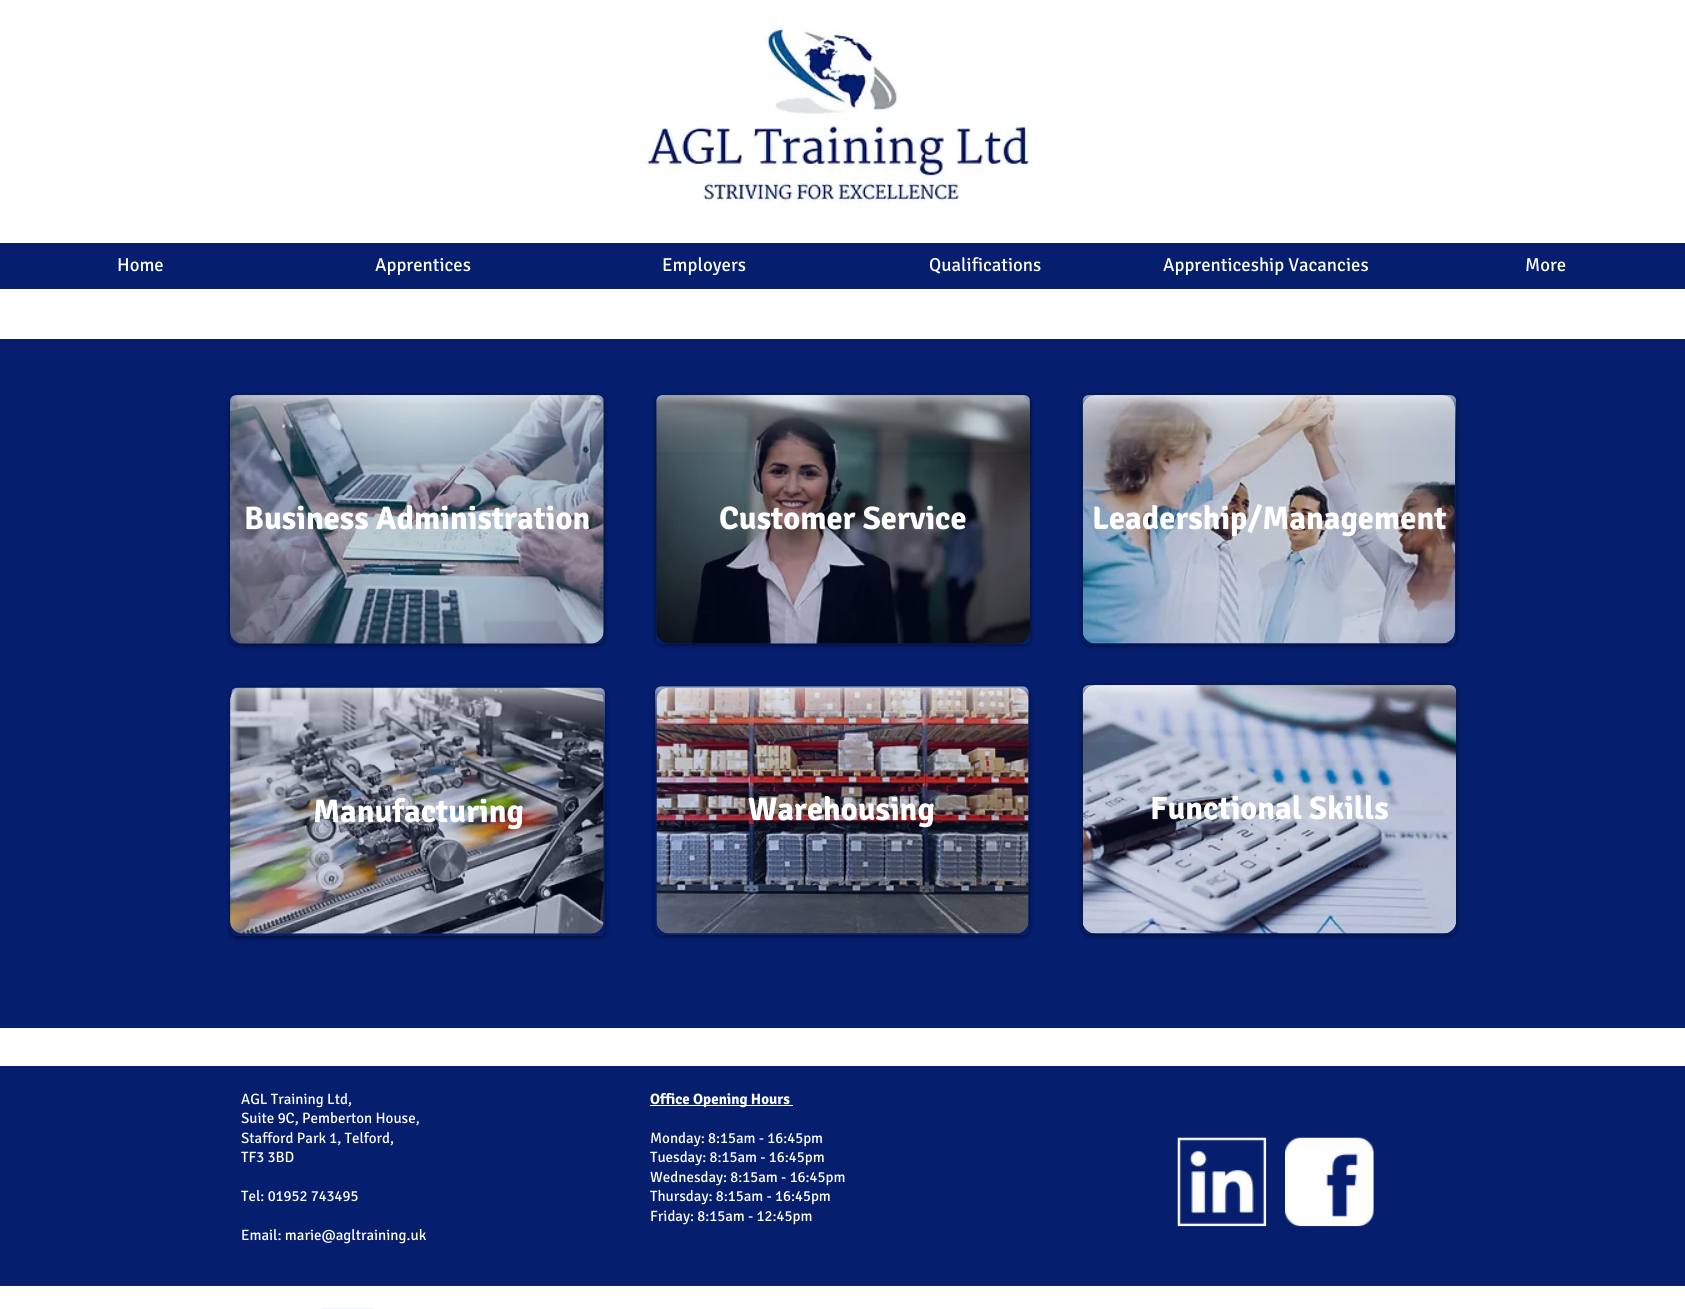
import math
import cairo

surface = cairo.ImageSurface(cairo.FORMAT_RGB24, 1685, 1309)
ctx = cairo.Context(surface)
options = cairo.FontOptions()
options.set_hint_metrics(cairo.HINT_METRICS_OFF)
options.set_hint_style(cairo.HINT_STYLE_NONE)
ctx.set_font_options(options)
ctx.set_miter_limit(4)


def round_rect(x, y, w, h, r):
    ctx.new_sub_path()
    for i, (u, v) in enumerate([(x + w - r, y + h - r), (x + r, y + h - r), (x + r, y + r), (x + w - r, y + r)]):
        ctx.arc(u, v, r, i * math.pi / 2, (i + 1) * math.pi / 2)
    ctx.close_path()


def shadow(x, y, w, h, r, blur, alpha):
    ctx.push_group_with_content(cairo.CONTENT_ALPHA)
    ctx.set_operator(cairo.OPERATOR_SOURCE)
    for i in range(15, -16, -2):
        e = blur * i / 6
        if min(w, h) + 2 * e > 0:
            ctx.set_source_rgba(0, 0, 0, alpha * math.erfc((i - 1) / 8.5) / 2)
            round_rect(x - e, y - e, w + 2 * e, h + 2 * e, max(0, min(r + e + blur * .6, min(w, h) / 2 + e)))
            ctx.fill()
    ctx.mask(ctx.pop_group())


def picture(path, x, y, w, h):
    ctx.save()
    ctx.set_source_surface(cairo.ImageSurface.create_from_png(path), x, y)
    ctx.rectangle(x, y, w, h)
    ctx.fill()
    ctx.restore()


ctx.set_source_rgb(1, 1, 1)
ctx.paint()
picture("img1.png", 644, 28, 386, 176)
ctx.set_source_rgb(0.02, 0.118, 0.431)
ctx.rectangle(0, 243, 1685, 46)
ctx.fill()
ctx.select_font_face("Signika")
ctx.set_font_size(18.75)
ctx.set_source_rgb(1, 1, 1)
ctx.move_to(117, 271)
ctx.show_text("Home")
ctx.move_to(375, 271)
ctx.show_text("Apprentices")
ctx.move_to(662, 271)
ctx.show_text("Employers")
ctx.move_to(929, 271)
ctx.show_text("Qualifications")
ctx.move_to(1163, 271)
ctx.show_text("Apprenticeship Vacancies")
ctx.move_to(1525, 271)
ctx.show_text("More")
ctx.set_source_rgb(0.02, 0.118, 0.431)
ctx.rectangle(0, 339, 1685, 689)
ctx.fill()
picture("img2.png", 230, 395, 374, 249)
picture("img3.png", 656, 395, 374, 249)
picture("img4.png", 1082, 395, 373, 249)
ctx.save()
ctx.set_fill_rule(cairo.FILL_RULE_EVEN_ODD)
ctx.new_path()
ctx.move_to(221, 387)
ctx.line_to(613, 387)
ctx.line_to(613, 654)
ctx.line_to(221, 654)
ctx.close_path()
ctx.move_to(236, 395)
ctx.line_to(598, 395)
ctx.curve_to(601.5, 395, 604, 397.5, 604, 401)
ctx.line_to(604, 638)
ctx.curve_to(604, 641.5, 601.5, 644, 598, 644)
ctx.line_to(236, 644)
ctx.curve_to(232.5, 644, 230, 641.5, 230, 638)
ctx.line_to(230, 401)
ctx.curve_to(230, 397.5, 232.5, 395, 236, 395)
ctx.close_path()
ctx.clip()
ctx.set_source_rgb(0, 0, 0)
shadow(230, 396, 374, 249, 6, 2.5, 0.6)
ctx.restore()
ctx.set_source_rgba(0.02, 0.118, 0.431, 0.2)
round_rect(230, 395, 374, 249, 6)
ctx.fill()
picture("img5.png", 230, 395, 374, 57)
ctx.select_font_face("Signika", cairo.FONT_SLANT_NORMAL, cairo.FONT_WEIGHT_BOLD)
ctx.set_font_size(32.5)
ctx.set_source_rgb(1, 1, 1)
ctx.move_to(244, 529)
ctx.show_text("Business Administration")
ctx.save()
ctx.set_fill_rule(cairo.FILL_RULE_EVEN_ODD)
ctx.new_path()
ctx.move_to(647, 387)
ctx.line_to(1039, 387)
ctx.line_to(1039, 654)
ctx.line_to(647, 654)
ctx.close_path()
ctx.move_to(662, 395)
ctx.line_to(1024, 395)
ctx.curve_to(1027.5, 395, 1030, 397.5, 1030, 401)
ctx.line_to(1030, 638)
ctx.curve_to(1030, 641.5, 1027.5, 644, 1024, 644)
ctx.line_to(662, 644)
ctx.curve_to(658.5, 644, 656, 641.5, 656, 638)
ctx.line_to(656, 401)
ctx.curve_to(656, 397.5, 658.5, 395, 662, 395)
ctx.close_path()
ctx.clip()
ctx.set_source_rgb(0, 0, 0)
shadow(656, 396, 374, 249, 6, 2.5, 0.6)
ctx.restore()
ctx.set_source_rgba(0.02, 0.118, 0.431, 0.2)
round_rect(656, 395, 374, 249, 6)
ctx.fill()
picture("img6.png", 656, 395, 374, 57)
ctx.set_source_rgb(1, 1, 1)
ctx.move_to(719, 529)
ctx.show_text("Customer Service")
ctx.save()
ctx.set_fill_rule(cairo.FILL_RULE_EVEN_ODD)
ctx.new_path()
ctx.move_to(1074, 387)
ctx.line_to(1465, 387)
ctx.line_to(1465, 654)
ctx.line_to(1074, 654)
ctx.close_path()
ctx.move_to(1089, 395)
ctx.line_to(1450, 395)
ctx.curve_to(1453.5, 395, 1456, 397.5, 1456, 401)
ctx.line_to(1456, 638)
ctx.curve_to(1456, 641.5, 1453.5, 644, 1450, 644)
ctx.line_to(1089, 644)
ctx.curve_to(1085.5, 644, 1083, 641.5, 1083, 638)
ctx.line_to(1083, 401)
ctx.curve_to(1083, 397.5, 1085.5, 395, 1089, 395)
ctx.close_path()
ctx.clip()
ctx.set_source_rgb(0, 0, 0)
shadow(1083, 396, 373, 249, 6, 2.5, 0.6)
ctx.restore()
ctx.set_source_rgba(0.02, 0.118, 0.431, 0.2)
round_rect(1083, 395, 373, 249, 6)
ctx.fill()
picture("img7.png", 1082, 395, 375, 57)
ctx.set_source_rgb(1, 1, 1)
ctx.move_to(1092, 529)
ctx.show_text("Leadership/Management")
picture("img8.png", 230, 687, 374, 247)
picture("img9.png", 656, 687, 373, 247)
picture("img10.png", 1082, 685, 374, 249)
ctx.save()
ctx.set_fill_rule(cairo.FILL_RULE_EVEN_ODD)
ctx.new_path()
ctx.move_to(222, 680)
ctx.line_to(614, 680)
ctx.line_to(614, 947)
ctx.line_to(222, 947)
ctx.close_path()
ctx.move_to(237, 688)
ctx.line_to(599, 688)
ctx.curve_to(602.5, 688, 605, 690.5, 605, 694)
ctx.line_to(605, 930)
ctx.curve_to(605, 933.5, 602.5, 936, 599, 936)
ctx.line_to(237, 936)
ctx.curve_to(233.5, 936, 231, 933.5, 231, 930)
ctx.line_to(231, 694)
ctx.curve_to(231, 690.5, 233.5, 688, 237, 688)
ctx.close_path()
ctx.clip()
ctx.set_source_rgb(0, 0, 0)
shadow(231, 689, 374, 249, 6, 2.5, 0.6)
ctx.restore()
ctx.set_source_rgba(0.02, 0.118, 0.431, 0.2)
round_rect(231, 688, 374, 248, 6)
ctx.fill()
picture("img11.png", 231, 687, 374, 57)
ctx.set_source_rgb(1, 1, 1)
ctx.move_to(313, 822)
ctx.show_text("Manufacturing")
ctx.save()
ctx.set_fill_rule(cairo.FILL_RULE_EVEN_ODD)
ctx.new_path()
ctx.move_to(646, 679)
ctx.line_to(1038, 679)
ctx.line_to(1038, 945)
ctx.line_to(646, 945)
ctx.close_path()
ctx.move_to(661, 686)
ctx.line_to(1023, 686)
ctx.curve_to(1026.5, 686, 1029, 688.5, 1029, 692)
ctx.line_to(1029, 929)
ctx.curve_to(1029, 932.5, 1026.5, 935, 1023, 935)
ctx.line_to(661, 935)
ctx.curve_to(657.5, 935, 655, 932.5, 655, 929)
ctx.line_to(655, 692)
ctx.curve_to(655, 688.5, 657.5, 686, 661, 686)
ctx.close_path()
ctx.clip()
ctx.set_source_rgb(0, 0, 0)
shadow(655, 688, 374, 248, 6, 2.5, 0.6)
ctx.restore()
ctx.set_source_rgba(0.02, 0.118, 0.431, 0.2)
round_rect(655, 686, 374, 249, 6)
ctx.fill()
picture("img12.png", 655, 686, 374, 57)
ctx.set_source_rgb(1, 1, 1)
ctx.move_to(748, 820)
ctx.show_text("Warehousing")
ctx.save()
ctx.set_fill_rule(cairo.FILL_RULE_EVEN_ODD)
ctx.new_path()
ctx.move_to(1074, 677)
ctx.line_to(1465, 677)
ctx.line_to(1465, 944)
ctx.line_to(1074, 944)
ctx.close_path()
ctx.move_to(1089, 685)
ctx.line_to(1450, 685)
ctx.curve_to(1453.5, 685, 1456, 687.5, 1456, 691)
ctx.line_to(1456, 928)
ctx.curve_to(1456, 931.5, 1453.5, 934, 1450, 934)
ctx.line_to(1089, 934)
ctx.curve_to(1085.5, 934, 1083, 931.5, 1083, 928)
ctx.line_to(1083, 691)
ctx.curve_to(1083, 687.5, 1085.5, 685, 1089, 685)
ctx.close_path()
ctx.clip()
ctx.set_source_rgb(0, 0, 0)
shadow(1083, 686, 373, 249, 6, 2.5, 0.6)
ctx.restore()
ctx.set_source_rgba(0.02, 0.118, 0.431, 0.2)
round_rect(1083, 685, 373, 249, 6)
ctx.fill()
picture("img13.png", 1082, 685, 375, 57)
ctx.set_source_rgb(1, 1, 1)
ctx.move_to(1150, 819)
ctx.show_text("Functional Skills")
ctx.set_source_rgb(0.02, 0.118, 0.431)
ctx.rectangle(0, 1066, 1685, 220)
ctx.fill()
ctx.select_font_face("Signika")
ctx.set_font_size(15)
ctx.set_source_rgb(1, 1, 1)
ctx.move_to(241, 1104)
ctx.show_text("AGL Training Ltd,")
ctx.move_to(241, 1123)
ctx.show_text("Suite 9C, Pemberton House,")
ctx.move_to(241, 1143)
ctx.show_text("Stafford Park 1, Telford,")
ctx.move_to(241, 1162)
ctx.show_text("TF3 3BD")
ctx.move_to(241, 1201)
ctx.show_text("Tel: 01952 743495")
ctx.move_to(241, 1240)
ctx.show_text("Email: marie@agltraining.uk")
ctx.rectangle(650, 1105, 143, 1)
ctx.fill()
ctx.select_font_face("Signika", cairo.FONT_SLANT_NORMAL, cairo.FONT_WEIGHT_BOLD)
ctx.move_to(650, 1104)
ctx.show_text("Office Opening Hours")
ctx.select_font_face("Signika")
ctx.move_to(650, 1143)
ctx.show_text("Monday: 8:15am - 16:45pm")
ctx.move_to(650, 1162)
ctx.show_text("Tuesday: 8:15am - 16:45pm")
ctx.move_to(650, 1182)
ctx.show_text("Wednesday: 8:15am - 16:45pm")
ctx.move_to(650, 1201)
ctx.show_text("Thursday: 8:15am - 16:45pm")
ctx.move_to(650, 1221)
ctx.show_text("Friday: 8:15am - 12:45pm")
picture("img14.png", 1177, 1137, 90, 90)
picture("img15.png", 1285, 1137, 89, 90)
picture("img16.png", 321, 1308, 53, 1)
surface.write_to_png("page.png")
